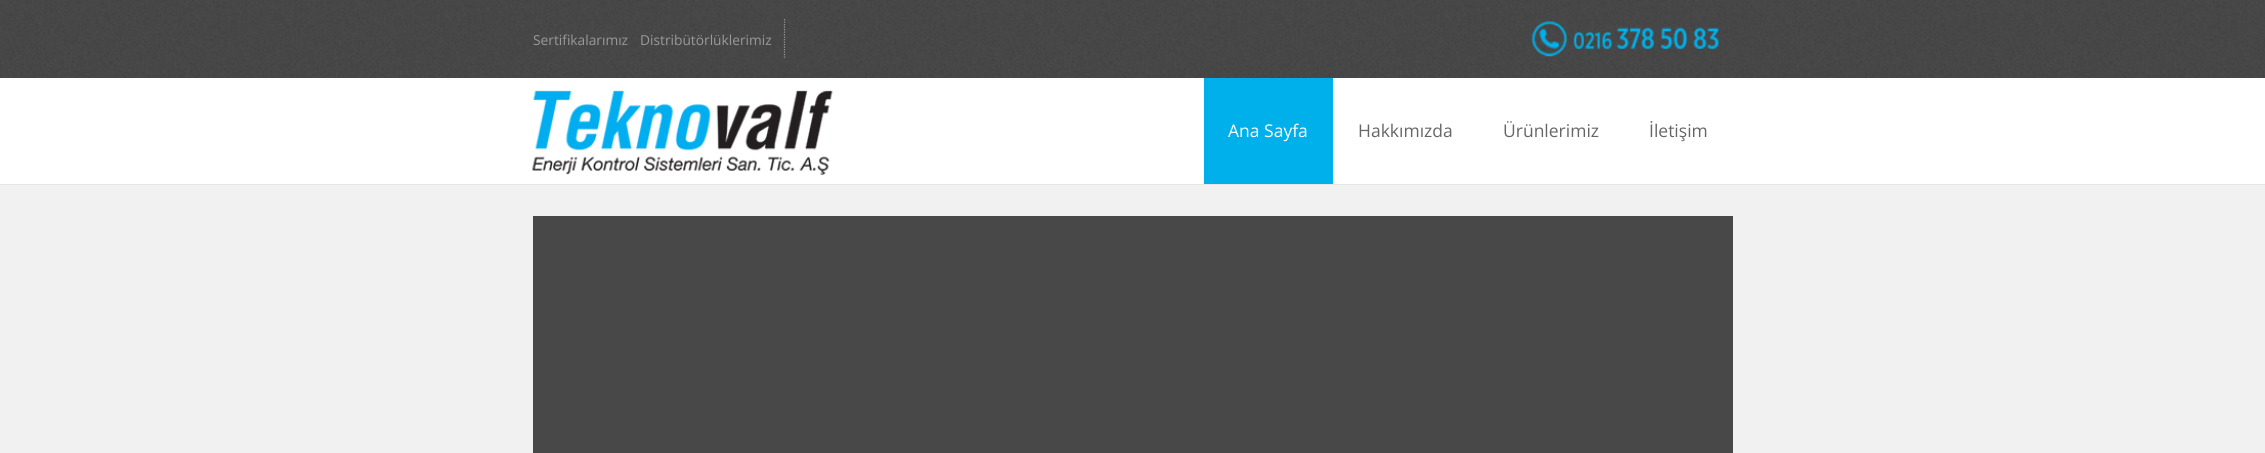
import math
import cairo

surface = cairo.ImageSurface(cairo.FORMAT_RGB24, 2265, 453)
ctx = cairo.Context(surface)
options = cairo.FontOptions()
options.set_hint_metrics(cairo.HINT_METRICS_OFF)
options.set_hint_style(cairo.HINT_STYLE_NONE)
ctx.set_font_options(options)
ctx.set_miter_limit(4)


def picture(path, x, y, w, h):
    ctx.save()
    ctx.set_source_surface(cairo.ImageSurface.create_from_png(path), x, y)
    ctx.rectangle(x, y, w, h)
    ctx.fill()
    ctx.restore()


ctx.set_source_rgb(0.267, 0.267, 0.267)
ctx.paint()
picture("img1.png", 0, 0, 2265, 78)
ctx.new_path()
ctx.move_to(784.5, 19)
ctx.line_to(784.5, 59)
ctx.set_source_rgb(0.6, 0.6, 0.6)
ctx.set_line_width(1.2)
ctx.set_dash([1.25, 1.25])
ctx.stroke()
ctx.select_font_face("Open Sans")
ctx.set_font_size(13.75)
ctx.move_to(533, 45)
ctx.show_text("Sertifikalarımız")
ctx.move_to(640, 45)
ctx.show_text("Distribütörlüklerimiz")
picture("img2.png", 1531, 21, 188, 36)
ctx.set_source_rgb(1, 1, 1)
ctx.rectangle(0, 78, 2265, 106)
ctx.fill()
picture("img3.png", 532, 90, 301, 85)
ctx.set_source_rgb(0, 0.69, 0.918)
ctx.rectangle(1204, 78, 129, 106)
ctx.fill()
ctx.set_font_size(17.5)
ctx.set_source_rgb(1, 1, 1)
ctx.move_to(1228, 137)
ctx.show_text("Ana Sayfa")
ctx.set_source_rgb(0.4, 0.4, 0.4)
ctx.move_to(1358, 137)
ctx.show_text("Hakkımızda")
ctx.move_to(1503, 137)
ctx.show_text("Ürünlerimiz")
ctx.move_to(1649, 137)
ctx.show_text("İletişim")
ctx.set_source_rgb(0.945, 0.945, 0.945)
ctx.rectangle(0, 185, 2265, 268)
ctx.fill()
ctx.set_source_rgb(0.898, 0.898, 0.898)
ctx.rectangle(0, 184, 2265, 1)
ctx.fill()
ctx.set_source_rgb(0.282, 0.282, 0.282)
ctx.rectangle(533, 216, 1200, 237)
ctx.fill()
surface.write_to_png("page.png")
